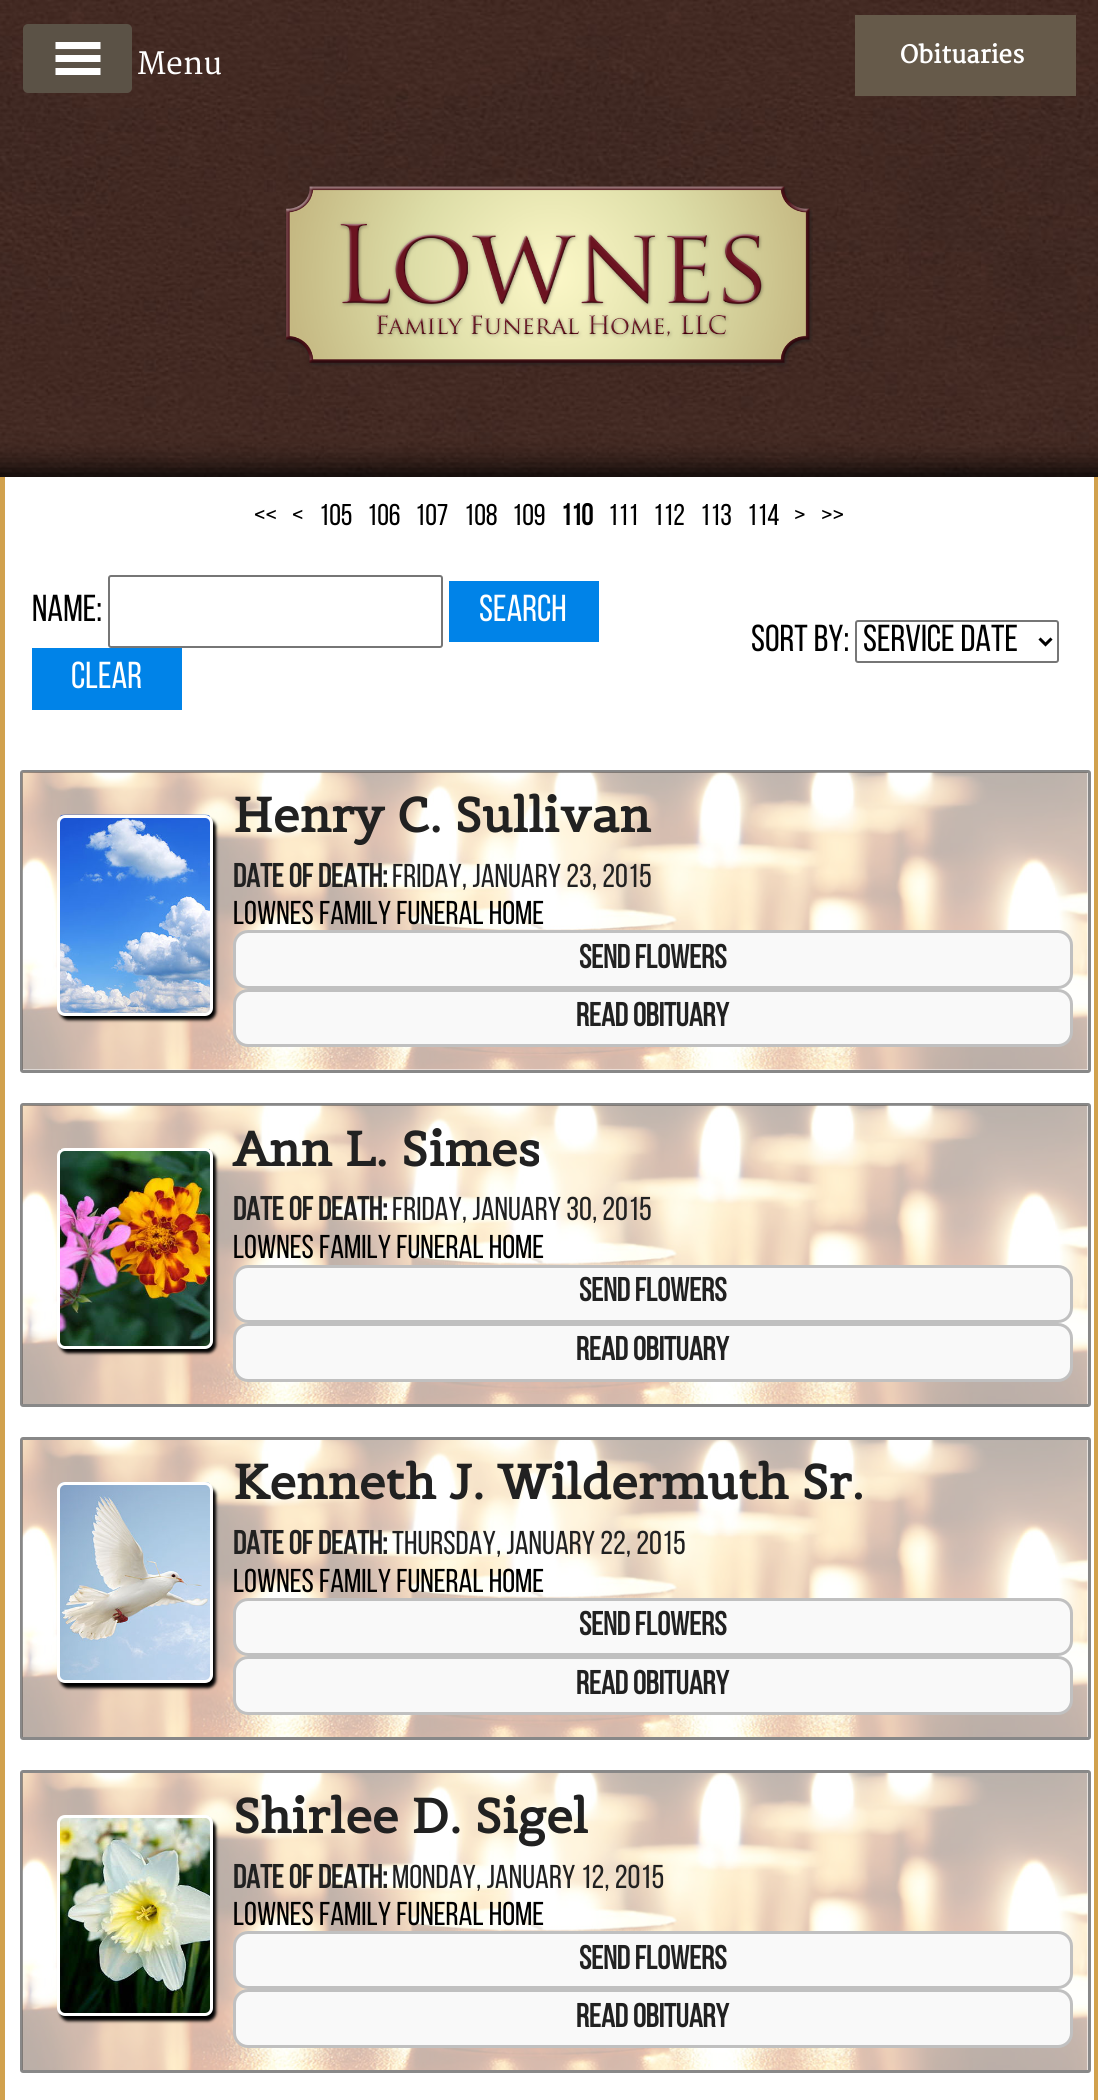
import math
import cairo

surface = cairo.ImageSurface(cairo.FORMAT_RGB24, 1098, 2100)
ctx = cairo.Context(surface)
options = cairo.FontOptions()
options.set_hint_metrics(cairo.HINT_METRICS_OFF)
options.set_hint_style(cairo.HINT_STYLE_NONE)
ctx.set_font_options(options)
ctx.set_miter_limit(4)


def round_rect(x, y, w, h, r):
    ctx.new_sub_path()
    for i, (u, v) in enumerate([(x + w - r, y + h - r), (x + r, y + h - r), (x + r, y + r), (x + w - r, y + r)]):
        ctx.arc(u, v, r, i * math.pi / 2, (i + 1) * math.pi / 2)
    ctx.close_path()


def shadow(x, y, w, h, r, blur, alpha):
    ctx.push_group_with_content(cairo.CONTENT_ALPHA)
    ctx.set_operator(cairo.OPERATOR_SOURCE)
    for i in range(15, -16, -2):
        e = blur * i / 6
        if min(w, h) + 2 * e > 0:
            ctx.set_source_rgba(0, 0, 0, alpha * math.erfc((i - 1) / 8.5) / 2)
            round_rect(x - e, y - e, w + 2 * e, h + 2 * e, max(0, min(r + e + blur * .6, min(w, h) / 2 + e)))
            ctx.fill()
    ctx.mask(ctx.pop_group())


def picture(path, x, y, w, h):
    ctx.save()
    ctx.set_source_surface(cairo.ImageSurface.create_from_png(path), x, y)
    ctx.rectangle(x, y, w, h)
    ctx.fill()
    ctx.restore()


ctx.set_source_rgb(1, 1, 1)
ctx.paint()
picture("img1.png", 0, 0, 1098, 477)
ctx.set_source_rgb(0.357, 0.322, 0.275)
round_rect(23, 24, 109, 69, 5)
ctx.fill()
picture("img2.png", 55, 42, 46, 33)
ctx.select_font_face("Merriweather ExtraLight")
ctx.set_font_size(30)
ctx.set_source_rgb(1, 1, 1)
ctx.move_to(137, 74)
ctx.show_text("Menu")
ctx.set_source_rgb(0.4, 0.353, 0.29)
ctx.rectangle(855, 15, 221, 81)
ctx.fill()
ctx.select_font_face("Merriweather", cairo.FONT_SLANT_NORMAL, cairo.FONT_WEIGHT_BOLD)
ctx.set_font_size(24)
ctx.set_source_rgb(1, 1, 1)
ctx.move_to(900, 63)
ctx.show_text("Obituaries")
picture("img3.png", 285, 186, 528, 181)
ctx.set_source_rgb(0, 0, 0)
shadow(-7, 470, 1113, 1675, 0, 15, 1)
ctx.set_source_rgb(1, 1, 1)
ctx.rectangle(5, 477, 1089, 1623)
ctx.fill()
ctx.set_source_rgb(0.82, 0.631, 0.302)
ctx.rectangle(1094, 477, 4, 1623)
ctx.fill()
ctx.rectangle(0, 477, 5, 1623)
ctx.fill()
ctx.select_font_face("Bebas Neue")
ctx.set_font_size(30)
ctx.set_source_rgb(0, 0, 0)
ctx.move_to(254, 525)
ctx.show_text("<<")
ctx.move_to(292, 525)
ctx.show_text("<")
ctx.move_to(319, 525)
ctx.show_text("105")
ctx.move_to(367, 525)
ctx.show_text("106")
ctx.move_to(415, 525)
ctx.show_text("107")
ctx.move_to(464, 525)
ctx.show_text("108")
ctx.move_to(512, 525)
ctx.show_text("109")
ctx.select_font_face("Bebas Neue", cairo.FONT_SLANT_NORMAL, cairo.FONT_WEIGHT_BOLD)
ctx.move_to(561, 525)
ctx.show_text("110")
ctx.select_font_face("Bebas Neue")
ctx.move_to(608, 525)
ctx.show_text("111")
ctx.move_to(653, 525)
ctx.show_text("112")
ctx.move_to(700, 525)
ctx.show_text("113")
ctx.move_to(747, 525)
ctx.show_text("114")
ctx.move_to(794, 525)
ctx.show_text(">")
ctx.move_to(821, 525)
ctx.show_text(">>")
ctx.set_font_size(37.5)
ctx.move_to(32, 621)
ctx.show_text("Name:")
round_rect(109, 576, 333, 71, 2)
ctx.set_source_rgb(0.463, 0.463, 0.463)
ctx.stroke()
ctx.set_source_rgb(0, 0.514, 0.91)
ctx.rectangle(449, 581, 150, 61)
ctx.fill()
ctx.set_source_rgb(1, 1, 1)
ctx.move_to(479, 621)
ctx.show_text("Search")
ctx.set_source_rgb(0, 0.514, 0.91)
ctx.rectangle(32, 648, 150, 62)
ctx.fill()
ctx.set_source_rgb(1, 1, 1)
ctx.move_to(71, 688)
ctx.show_text("Clear")
ctx.set_source_rgb(0, 0, 0)
ctx.move_to(751, 651)
ctx.show_text("Sort by:")
round_rect(856, 621, 202, 41, 2)
ctx.set_source_rgb(0.463, 0.463, 0.463)
ctx.stroke()
ctx.new_path()
ctx.move_to(1039.5, 638.5)
ctx.line_to(1045.5, 644.5)
ctx.line_to(1051.5, 638.5)
ctx.set_source_rgb(0, 0, 0)
ctx.set_line_width(3)
ctx.stroke()
ctx.move_to(863, 651)
ctx.show_text("Service Date")
round_rect(21.5, 771.5, 1068, 300, 1.5)
ctx.set_source_rgb(0.533, 0.533, 0.533)
ctx.stroke()
picture("img4.png", 22, 772, 1066, 298)
ctx.set_source_rgb(0, 0, 0)
shadow(60, 819, 156, 201, 8, 1.5, 1)
picture("img5.png", 60, 814, 150, 199)
round_rect(58.5, 816.5, 153, 198, 6.5)
ctx.set_source_rgb(1, 1, 1)
ctx.stroke()
ctx.select_font_face("Belgrano", cairo.FONT_SLANT_NORMAL, cairo.FONT_WEIGHT_BOLD)
ctx.set_font_size(48)
ctx.set_source_rgb(0.129, 0.129, 0.129)
ctx.move_to(233, 832)
ctx.show_text("Henry C. Sullivan")
ctx.select_font_face("Bebas Neue", cairo.FONT_SLANT_NORMAL, cairo.FONT_WEIGHT_BOLD)
ctx.set_font_size(33)
ctx.move_to(233, 887)
ctx.show_text("Date Of Death:")
ctx.select_font_face("Bebas Neue")
ctx.move_to(392, 887)
ctx.show_text("Friday, January 23, 2015")
ctx.set_source_rgb(0, 0, 0)
ctx.move_to(233, 924)
ctx.show_text("Lownes Family Funeral Home")
ctx.set_source_rgb(0.976, 0.976, 0.976)
round_rect(234.5, 931.5, 837, 56, 13.5)
ctx.fill_preserve()
ctx.set_source_rgb(0.753, 0.753, 0.753)
ctx.stroke()
ctx.select_font_face("Bebas Neue", cairo.FONT_SLANT_NORMAL, cairo.FONT_WEIGHT_BOLD)
ctx.set_source_rgb(0.129, 0.129, 0.129)
ctx.move_to(579, 968)
ctx.show_text("Send Flowers")
ctx.set_source_rgb(0.976, 0.976, 0.976)
round_rect(234.5, 990.5, 837, 55, 13.5)
ctx.fill_preserve()
ctx.set_source_rgb(0.753, 0.753, 0.753)
ctx.stroke()
ctx.set_source_rgb(0.129, 0.129, 0.129)
ctx.move_to(576, 1026)
ctx.show_text("Read Obituary")
round_rect(21.5, 1104.5, 1068, 301, 1.5)
ctx.set_source_rgb(0.533, 0.533, 0.533)
ctx.stroke()
picture("img6.png", 22, 1105, 1066, 299)
ctx.set_source_rgb(0, 0, 0)
shadow(60, 1152, 156, 201, 8, 1.5, 1)
picture("img7.png", 60, 1149, 150, 200)
round_rect(58.5, 1149.5, 153, 198, 6.5)
ctx.set_source_rgb(1, 1, 1)
ctx.stroke()
ctx.select_font_face("Belgrano", cairo.FONT_SLANT_NORMAL, cairo.FONT_WEIGHT_BOLD)
ctx.set_font_size(48)
ctx.set_source_rgb(0.129, 0.129, 0.129)
ctx.move_to(233, 1166)
ctx.show_text("Ann L. Simes")
ctx.select_font_face("Bebas Neue", cairo.FONT_SLANT_NORMAL, cairo.FONT_WEIGHT_BOLD)
ctx.set_font_size(33)
ctx.move_to(233, 1220)
ctx.show_text("Date Of Death:")
ctx.select_font_face("Bebas Neue")
ctx.move_to(392, 1220)
ctx.show_text("Friday, January 30, 2015")
ctx.set_source_rgb(0, 0, 0)
ctx.move_to(233, 1258)
ctx.show_text("Lownes Family Funeral Home")
ctx.set_source_rgb(0.976, 0.976, 0.976)
round_rect(234.5, 1266.5, 837, 55, 13.5)
ctx.fill_preserve()
ctx.set_source_rgb(0.753, 0.753, 0.753)
ctx.stroke()
ctx.select_font_face("Bebas Neue", cairo.FONT_SLANT_NORMAL, cairo.FONT_WEIGHT_BOLD)
ctx.set_source_rgb(0.129, 0.129, 0.129)
ctx.move_to(579, 1301)
ctx.show_text("Send Flowers")
ctx.set_source_rgb(0.976, 0.976, 0.976)
round_rect(234.5, 1324.5, 837, 56, 13.5)
ctx.fill_preserve()
ctx.set_source_rgb(0.753, 0.753, 0.753)
ctx.stroke()
ctx.set_source_rgb(0.129, 0.129, 0.129)
ctx.move_to(576, 1360)
ctx.show_text("Read Obituary")
round_rect(21.5, 1438.5, 1068, 300, 1.5)
ctx.set_source_rgb(0.533, 0.533, 0.533)
ctx.stroke()
picture("img8.png", 22, 1440, 1066, 297)
ctx.set_source_rgb(0, 0, 0)
shadow(60, 1487, 156, 201, 8, 1.5, 1)
picture("img9.png", 60, 1482, 150, 200)
round_rect(58.5, 1483.5, 153, 198, 6.5)
ctx.set_source_rgb(1, 1, 1)
ctx.stroke()
ctx.select_font_face("Belgrano", cairo.FONT_SLANT_NORMAL, cairo.FONT_WEIGHT_BOLD)
ctx.set_font_size(48)
ctx.set_source_rgb(0.129, 0.129, 0.129)
ctx.move_to(233, 1499)
ctx.show_text("Kenneth J. Wildermuth Sr.")
ctx.select_font_face("Bebas Neue", cairo.FONT_SLANT_NORMAL, cairo.FONT_WEIGHT_BOLD)
ctx.set_font_size(33)
ctx.move_to(233, 1554)
ctx.show_text("Date Of Death:")
ctx.select_font_face("Bebas Neue")
ctx.move_to(392, 1554)
ctx.show_text("Thursday, January 22, 2015")
ctx.set_source_rgb(0, 0, 0)
ctx.move_to(233, 1592)
ctx.show_text("Lownes Family Funeral Home")
ctx.set_source_rgb(0.976, 0.976, 0.976)
round_rect(234.5, 1599.5, 837, 55, 13.5)
ctx.fill_preserve()
ctx.set_source_rgb(0.753, 0.753, 0.753)
ctx.stroke()
ctx.select_font_face("Bebas Neue", cairo.FONT_SLANT_NORMAL, cairo.FONT_WEIGHT_BOLD)
ctx.set_source_rgb(0.129, 0.129, 0.129)
ctx.move_to(579, 1635)
ctx.show_text("Send Flowers")
ctx.set_source_rgb(0.976, 0.976, 0.976)
round_rect(234.5, 1657.5, 837, 56, 13.5)
ctx.fill_preserve()
ctx.set_source_rgb(0.753, 0.753, 0.753)
ctx.stroke()
ctx.set_source_rgb(0.129, 0.129, 0.129)
ctx.move_to(576, 1694)
ctx.show_text("Read Obituary")
round_rect(21.5, 1771.5, 1068, 300, 1.5)
ctx.set_source_rgb(0.533, 0.533, 0.533)
ctx.stroke()
picture("img10.png", 22, 1773, 1066, 297)
ctx.set_source_rgb(0, 0, 0)
shadow(60, 1820, 156, 201, 8, 1.5, 1)
picture("img11.png", 60, 1816, 150, 200)
round_rect(58.5, 1816.5, 153, 198, 6.5)
ctx.set_source_rgb(1, 1, 1)
ctx.stroke()
ctx.select_font_face("Belgrano", cairo.FONT_SLANT_NORMAL, cairo.FONT_WEIGHT_BOLD)
ctx.set_font_size(48)
ctx.set_source_rgb(0.129, 0.129, 0.129)
ctx.move_to(233, 1833)
ctx.show_text("Shirlee D. Sigel")
ctx.select_font_face("Bebas Neue", cairo.FONT_SLANT_NORMAL, cairo.FONT_WEIGHT_BOLD)
ctx.set_font_size(33)
ctx.move_to(233, 1888)
ctx.show_text("Date Of Death:")
ctx.select_font_face("Bebas Neue")
ctx.move_to(392, 1888)
ctx.show_text("Monday, January 12, 2015")
ctx.set_source_rgb(0, 0, 0)
ctx.move_to(233, 1925)
ctx.show_text("Lownes Family Funeral Home")
ctx.set_source_rgb(0.976, 0.976, 0.976)
round_rect(234.5, 1932.5, 837, 55, 13.5)
ctx.fill_preserve()
ctx.set_source_rgb(0.753, 0.753, 0.753)
ctx.stroke()
ctx.select_font_face("Bebas Neue", cairo.FONT_SLANT_NORMAL, cairo.FONT_WEIGHT_BOLD)
ctx.set_source_rgb(0.129, 0.129, 0.129)
ctx.move_to(579, 1969)
ctx.show_text("Send Flowers")
ctx.set_source_rgb(0.976, 0.976, 0.976)
round_rect(234.5, 1990.5, 837, 56, 13.5)
ctx.fill_preserve()
ctx.set_source_rgb(0.753, 0.753, 0.753)
ctx.stroke()
ctx.set_source_rgb(0.129, 0.129, 0.129)
ctx.move_to(576, 2027)
ctx.show_text("Read Obituary")
surface.write_to_png("page.png")
